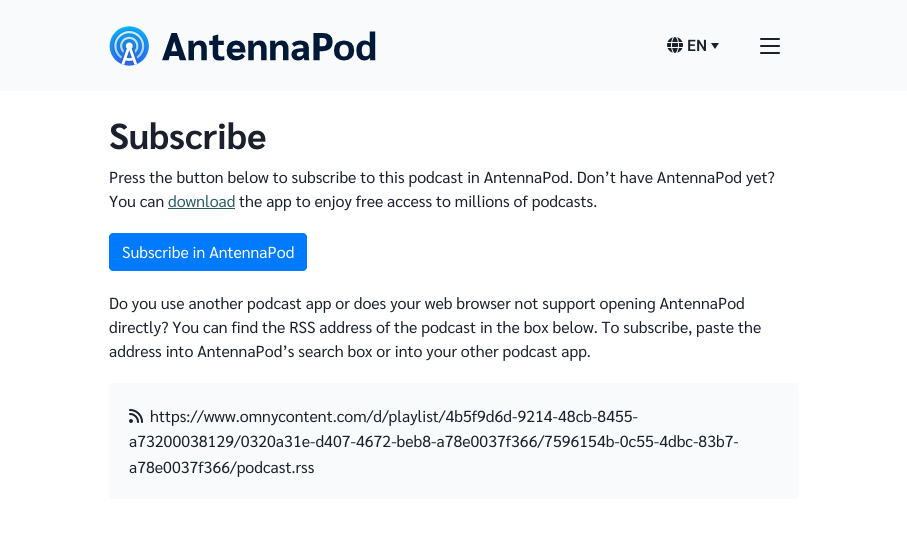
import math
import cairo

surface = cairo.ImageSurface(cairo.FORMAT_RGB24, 907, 554)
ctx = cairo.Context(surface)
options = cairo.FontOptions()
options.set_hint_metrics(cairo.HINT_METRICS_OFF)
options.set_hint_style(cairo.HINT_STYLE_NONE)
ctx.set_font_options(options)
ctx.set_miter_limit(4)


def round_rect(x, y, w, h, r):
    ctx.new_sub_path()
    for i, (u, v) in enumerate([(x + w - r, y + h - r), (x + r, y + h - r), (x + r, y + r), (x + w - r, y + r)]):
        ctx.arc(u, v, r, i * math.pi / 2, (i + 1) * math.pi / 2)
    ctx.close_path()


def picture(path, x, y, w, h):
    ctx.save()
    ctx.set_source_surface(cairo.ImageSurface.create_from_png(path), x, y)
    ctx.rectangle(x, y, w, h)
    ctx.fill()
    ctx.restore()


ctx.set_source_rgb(1, 1, 1)
ctx.paint()
ctx.set_source_rgb(0.969, 0.98, 0.988)
ctx.rectangle(0, 0, 907, 91)
ctx.fill()
picture("img1.png", 109, 26, 267, 40)
picture("img2.png", 667, 37, 16, 16)
ctx.select_font_face("Sarabun SemiBold")
ctx.set_font_size(16)
ctx.set_source_rgb(0.102, 0.125, 0.173)
ctx.move_to(687, 51)
ctx.show_text("EN")
ctx.new_path()
ctx.move_to(711, 43)
ctx.line_to(719, 43)
ctx.line_to(715, 49)
ctx.close_path()
ctx.fill()
round_rect(760, 38, 20, 2, 1)
ctx.fill()
round_rect(760, 45, 20, 2, 1)
ctx.fill()
round_rect(760, 52, 20, 2, 1)
ctx.fill()
ctx.select_font_face("Sarabun", cairo.FONT_SLANT_NORMAL, cairo.FONT_WEIGHT_BOLD)
ctx.set_font_size(36)
ctx.move_to(109, 149)
ctx.show_text("Subscribe")
ctx.select_font_face("Sarabun")
ctx.set_font_size(16)
ctx.move_to(109, 183)
ctx.show_text("Press the button below to subscribe to this podcast in AntennaPod. Don’t have AntennaPod yet?")
ctx.move_to(109, 207)
ctx.show_text("You can")
ctx.set_source_rgb(0.157, 0.369, 0.38)
ctx.move_to(168, 207)
ctx.show_text("download")
ctx.rectangle(168, 208, 67, 1)
ctx.fill()
ctx.set_source_rgb(0.102, 0.125, 0.173)
ctx.move_to(239, 207)
ctx.show_text("the app to enjoy free access to millions of podcasts.")
ctx.set_source_rgb(0, 0.482, 1)
round_rect(109.5, 233.5, 197, 37, 3.5)
ctx.fill_preserve()
ctx.set_line_width(1)
ctx.stroke()
ctx.set_source_rgb(1, 1, 1)
ctx.move_to(122, 258)
ctx.show_text("Subscribe in AntennaPod")
ctx.set_source_rgb(0.102, 0.125, 0.173)
ctx.move_to(109, 309)
ctx.show_text("Do you use another podcast app or does your web browser not support opening AntennaPod")
ctx.move_to(109, 333)
ctx.show_text("directly? You can find the RSS address of the podcast in the box below. To subscribe, paste the")
ctx.move_to(109, 357)
ctx.show_text("address into AntennaPod’s search box or into your other podcast app.")
ctx.set_source_rgb(0.969, 0.98, 0.988)
round_rect(109, 383, 690, 116, 4)
ctx.fill()
picture("img3.png", 129, 409, 14, 14)
ctx.set_source_rgb(0.102, 0.125, 0.173)
ctx.move_to(150, 422)
ctx.show_text("https://www.omnycontent.com/d/playlist/4b5f9d6d-9214-48cb-8455-")
ctx.move_to(129, 447)
ctx.show_text("a73200038129/0320a31e-d407-4672-beb8-a78e0037f366/7596154b-0c55-4dbc-83b7-")
ctx.move_to(129, 473)
ctx.show_text("a78e0037f366/podcast.rss")
surface.write_to_png("page.png")
